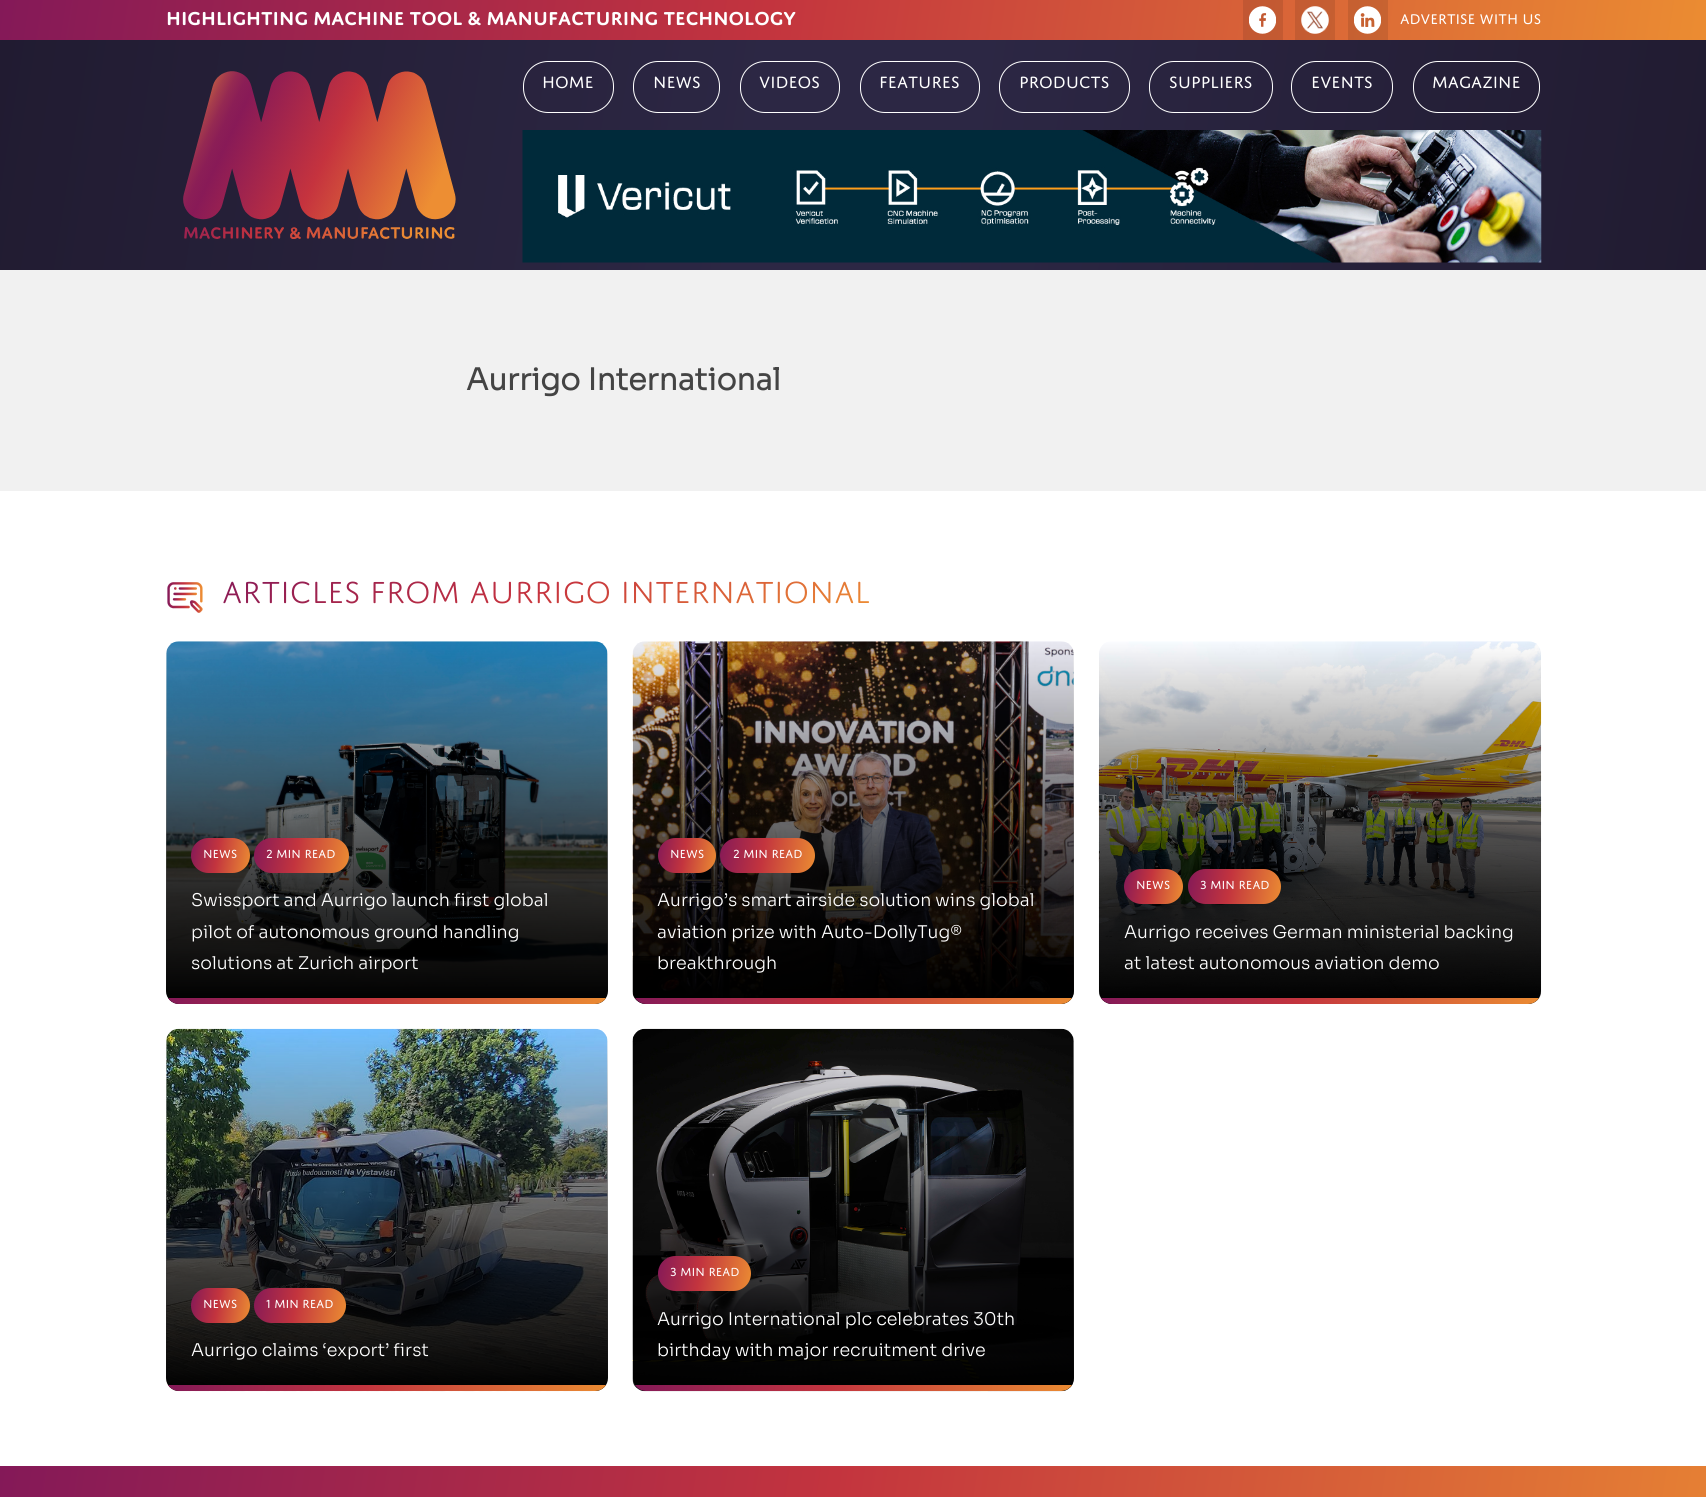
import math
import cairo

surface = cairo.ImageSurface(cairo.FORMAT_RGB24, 1706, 1497)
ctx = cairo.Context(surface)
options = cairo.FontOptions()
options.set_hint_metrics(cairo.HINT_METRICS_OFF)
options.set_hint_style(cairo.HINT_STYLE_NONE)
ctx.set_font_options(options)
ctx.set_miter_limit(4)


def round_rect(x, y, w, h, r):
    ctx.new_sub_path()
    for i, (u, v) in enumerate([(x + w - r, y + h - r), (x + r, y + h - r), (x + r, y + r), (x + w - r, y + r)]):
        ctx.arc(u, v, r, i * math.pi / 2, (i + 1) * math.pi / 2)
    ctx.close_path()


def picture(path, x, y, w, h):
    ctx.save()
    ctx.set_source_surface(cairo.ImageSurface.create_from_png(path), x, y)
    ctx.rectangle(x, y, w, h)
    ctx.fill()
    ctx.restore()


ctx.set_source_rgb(1, 1, 1)
ctx.paint()
gradient = cairo.LinearGradient(0, -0.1, 1706, 270)
gradient.add_color_stop_rgba(0, 0.129, 0.106, 0.192, 1)
gradient.add_color_stop_rgba(0.45, 0.173, 0.153, 0.267, 1)
gradient.add_color_stop_rgba(0.56, 0.173, 0.153, 0.267, 1)
gradient.add_color_stop_rgba(1, 0.129, 0.106, 0.192, 1)
ctx.set_source(gradient)
ctx.rectangle(0, 40, 1706, 230)
ctx.fill()
gradient = cairo.LinearGradient(18, -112, 1688, 152)
gradient.add_color_stop_rgba(0, 0.518, 0.098, 0.345, 1)
gradient.add_color_stop_rgba(0.45, 0.765, 0.204, 0.243, 1)
gradient.add_color_stop_rgba(0.56, 0.796, 0.275, 0.235, 1)
gradient.add_color_stop_rgba(1, 0.922, 0.549, 0.196, 1)
ctx.set_source(gradient)
ctx.rectangle(0, 0, 1706, 40)
ctx.fill()
gradient = cairo.LinearGradient(18, -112, 1688, 152)
gradient.add_color_stop_rgba(0, 0.467, 0.09, 0.31, 1)
gradient.add_color_stop_rgba(0.45, 0.69, 0.184, 0.22, 1)
gradient.add_color_stop_rgba(0.56, 0.718, 0.247, 0.212, 1)
gradient.add_color_stop_rgba(1, 0.831, 0.494, 0.176, 1)
ctx.set_source(gradient)
ctx.rectangle(1348, 0, 40, 40)
ctx.fill()
ctx.rectangle(1295, 0, 40, 40)
ctx.fill()
ctx.rectangle(1243, 0, 40, 40)
ctx.fill()
ctx.select_font_face("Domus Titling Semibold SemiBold")
ctx.set_font_size(20)
ctx.set_source_rgb(1, 1, 1)
ctx.move_to(166, 25)
ctx.show_text("HIGHLIGHTING MACHINE TOOL & MANUFACTURING TECHNOLOGY")
picture("img1.png", 1249, 6, 27, 28)
picture("img2.png", 1301, 6, 28, 28)
picture("img3.png", 1354, 6, 27, 28)
ctx.select_font_face("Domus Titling")
ctx.set_font_size(15)
ctx.move_to(1400, 24)
ctx.show_text("Advertise with us")
picture("img4.png", 183, 71, 273, 168)
round_rect(523.5, 61.5, 90, 51, 24.5)
ctx.set_line_width(1)
ctx.stroke()
ctx.set_font_size(17.5)
ctx.move_to(542, 88)
ctx.show_text("Home")
round_rect(633.5, 61.5, 86, 51, 24.5)
ctx.stroke()
ctx.move_to(653, 88)
ctx.show_text("News")
round_rect(740.5, 61.5, 99, 51, 24.5)
ctx.stroke()
ctx.move_to(759, 88)
ctx.show_text("Videos")
round_rect(860.5, 61.5, 119, 51, 24.5)
ctx.stroke()
ctx.move_to(879, 88)
ctx.show_text("Features")
round_rect(999.5, 61.5, 130, 51, 24.5)
ctx.stroke()
ctx.move_to(1019, 88)
ctx.show_text("Products")
round_rect(1149.5, 61.5, 123, 51, 24.5)
ctx.stroke()
ctx.move_to(1169, 88)
ctx.show_text("Suppliers")
round_rect(1291.5, 61.5, 101, 51, 24.5)
ctx.stroke()
ctx.move_to(1311, 88)
ctx.show_text("Events")
round_rect(1413.5, 61.5, 126, 51, 24.5)
ctx.stroke()
ctx.move_to(1432, 88)
ctx.show_text("Magazine")
picture("img5.png", 522, 130, 1020, 133)
ctx.set_source_rgb(0.945, 0.945, 0.945)
ctx.rectangle(0, 270, 1706, 221)
ctx.fill()
ctx.select_font_face("Sora", cairo.FONT_SLANT_NORMAL, cairo.FONT_WEIGHT_BOLD)
ctx.set_font_size(30)
ctx.set_source_rgb(0.267, 0.267, 0.267)
ctx.move_to(466, 390)
ctx.show_text("Aurrigo International")
picture("img6.png", 167, 582, 36, 31)
ctx.select_font_face("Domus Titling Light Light")
ctx.set_font_size(32.5)
gradient = cairo.LinearGradient(485, 455, 607, 728)
gradient.add_color_stop_rgba(0, 0.518, 0.094, 0.349, 1)
gradient.add_color_stop_rgba(0.49, 0.776, 0.196, 0.243, 1)
gradient.add_color_stop_rgba(1, 0.933, 0.561, 0.204, 1)
ctx.set_source(gradient)
ctx.move_to(222, 603)
ctx.show_text("Articles from Aurrigo International")
picture("img7.png", 166, 641, 442, 363)
gradient = cairo.LinearGradient(387, 1004, 387, 641)
gradient.add_color_stop_rgba(0, 0, 0, 0, 1)
gradient.add_color_stop_rgba(0.3, 0, 0, 0, 0.78)
gradient.add_color_stop_rgba(1, 0, 0, 0, 0)
ctx.set_source(gradient)
round_rect(166, 641, 442, 363, 13)
ctx.fill()
gradient = cairo.LinearGradient(189, 850, 252, 860)
gradient.add_color_stop_rgba(0, 0.518, 0.098, 0.345, 1)
gradient.add_color_stop_rgba(0.45, 0.765, 0.204, 0.243, 1)
gradient.add_color_stop_rgba(0.56, 0.796, 0.275, 0.235, 1)
gradient.add_color_stop_rgba(1, 0.922, 0.549, 0.196, 1)
ctx.set_source(gradient)
round_rect(191, 838, 59, 35, 17.5)
ctx.fill()
ctx.select_font_face("Domus Titling")
ctx.set_font_size(12.5)
ctx.set_source_rgb(1, 1, 1)
ctx.move_to(203, 858)
ctx.show_text("News")
gradient = cairo.LinearGradient(252, 847, 350, 863)
gradient.add_color_stop_rgba(0, 0.518, 0.098, 0.345, 1)
gradient.add_color_stop_rgba(0.45, 0.765, 0.204, 0.243, 1)
gradient.add_color_stop_rgba(0.56, 0.796, 0.275, 0.235, 1)
gradient.add_color_stop_rgba(1, 0.922, 0.549, 0.196, 1)
ctx.set_source(gradient)
round_rect(254, 838, 95, 35, 17.5)
ctx.fill()
ctx.set_source_rgb(1, 1, 1)
ctx.move_to(266, 858)
ctx.show_text("2 Min Read")
ctx.select_font_face("Sora Light")
ctx.set_font_size(17.5)
ctx.move_to(191, 906)
ctx.show_text("Swissport and Aurrigo launch first global")
ctx.move_to(191, 938)
ctx.show_text("pilot of autonomous ground handling")
ctx.move_to(191, 969)
ctx.show_text("solutions at Zurich airport")
ctx.save()
round_rect(166, 641, 442, 363, 13)
ctx.clip()
gradient = cairo.LinearGradient(171, 966, 603, 1035)
gradient.add_color_stop_rgba(0, 0.518, 0.098, 0.345, 1)
gradient.add_color_stop_rgba(0.45, 0.765, 0.204, 0.243, 1)
gradient.add_color_stop_rgba(0.56, 0.796, 0.275, 0.235, 1)
gradient.add_color_stop_rgba(1, 0.922, 0.549, 0.196, 1)
ctx.set_source(gradient)
ctx.rectangle(166, 998, 442, 6)
ctx.fill()
ctx.restore()
picture("img8.png", 632, 641, 442, 363)
gradient = cairo.LinearGradient(853, 1004, 853, 641)
gradient.add_color_stop_rgba(0, 0, 0, 0, 1)
gradient.add_color_stop_rgba(0.3, 0, 0, 0, 0.78)
gradient.add_color_stop_rgba(1, 0, 0, 0, 0)
ctx.set_source(gradient)
round_rect(633, 641, 441, 363, 13)
ctx.fill()
gradient = cairo.LinearGradient(656, 850, 718, 860)
gradient.add_color_stop_rgba(0, 0.518, 0.098, 0.345, 1)
gradient.add_color_stop_rgba(0.45, 0.765, 0.204, 0.243, 1)
gradient.add_color_stop_rgba(0.56, 0.796, 0.275, 0.235, 1)
gradient.add_color_stop_rgba(1, 0.922, 0.549, 0.196, 1)
ctx.set_source(gradient)
round_rect(658, 838, 58, 35, 17.5)
ctx.fill()
ctx.select_font_face("Domus Titling")
ctx.set_font_size(12.5)
ctx.set_source_rgb(1, 1, 1)
ctx.move_to(670, 858)
ctx.show_text("News")
gradient = cairo.LinearGradient(718, 847, 817, 863)
gradient.add_color_stop_rgba(0, 0.518, 0.098, 0.345, 1)
gradient.add_color_stop_rgba(0.45, 0.765, 0.204, 0.243, 1)
gradient.add_color_stop_rgba(0.56, 0.796, 0.275, 0.235, 1)
gradient.add_color_stop_rgba(1, 0.922, 0.549, 0.196, 1)
ctx.set_source(gradient)
round_rect(720, 838, 95, 35, 17.5)
ctx.fill()
ctx.set_source_rgb(1, 1, 1)
ctx.move_to(733, 858)
ctx.show_text("2 Min Read")
ctx.select_font_face("Sora Light")
ctx.set_font_size(17.5)
ctx.move_to(657, 906)
ctx.show_text("Aurrigo’s smart airside solution wins global")
ctx.move_to(657, 938)
ctx.show_text("aviation prize with Auto-DollyTug®")
ctx.move_to(657, 969)
ctx.show_text("breakthrough")
ctx.save()
round_rect(633, 641, 441, 363, 13)
ctx.clip()
gradient = cairo.LinearGradient(637, 966, 1069, 1035)
gradient.add_color_stop_rgba(0, 0.518, 0.098, 0.345, 1)
gradient.add_color_stop_rgba(0.45, 0.765, 0.204, 0.243, 1)
gradient.add_color_stop_rgba(0.56, 0.796, 0.275, 0.235, 1)
gradient.add_color_stop_rgba(1, 0.922, 0.549, 0.196, 1)
ctx.set_source(gradient)
ctx.rectangle(633, 998, 441, 6)
ctx.fill()
ctx.restore()
picture("img9.png", 1098, 641, 444, 363)
gradient = cairo.LinearGradient(1320, 1004, 1320, 641)
gradient.add_color_stop_rgba(0, 0, 0, 0, 1)
gradient.add_color_stop_rgba(0.3, 0, 0, 0, 0.78)
gradient.add_color_stop_rgba(1, 0, 0, 0, 0)
ctx.set_source(gradient)
round_rect(1099, 641, 442, 363, 13)
ctx.fill()
gradient = cairo.LinearGradient(1122, 881, 1184, 891)
gradient.add_color_stop_rgba(0, 0.518, 0.098, 0.345, 1)
gradient.add_color_stop_rgba(0.45, 0.765, 0.204, 0.243, 1)
gradient.add_color_stop_rgba(0.56, 0.796, 0.275, 0.235, 1)
gradient.add_color_stop_rgba(1, 0.922, 0.549, 0.196, 1)
ctx.set_source(gradient)
round_rect(1124, 869, 59, 35, 17.5)
ctx.fill()
ctx.select_font_face("Domus Titling")
ctx.set_font_size(12.5)
ctx.set_source_rgb(1, 1, 1)
ctx.move_to(1136, 889)
ctx.show_text("News")
gradient = cairo.LinearGradient(1186, 879, 1283, 894)
gradient.add_color_stop_rgba(0, 0.518, 0.098, 0.345, 1)
gradient.add_color_stop_rgba(0.45, 0.765, 0.204, 0.243, 1)
gradient.add_color_stop_rgba(0.56, 0.796, 0.275, 0.235, 1)
gradient.add_color_stop_rgba(1, 0.922, 0.549, 0.196, 1)
ctx.set_source(gradient)
round_rect(1188, 869, 93, 35, 17.5)
ctx.fill()
ctx.set_source_rgb(1, 1, 1)
ctx.move_to(1200, 889)
ctx.show_text("3 Min Read")
ctx.select_font_face("Sora Light")
ctx.set_font_size(17.5)
ctx.move_to(1124, 938)
ctx.show_text("Aurrigo receives German ministerial backing")
ctx.move_to(1124, 969)
ctx.show_text("at latest autonomous aviation demo")
ctx.save()
round_rect(1099, 641, 442, 363, 13)
ctx.clip()
gradient = cairo.LinearGradient(1104, 966, 1536, 1035)
gradient.add_color_stop_rgba(0, 0.518, 0.098, 0.345, 1)
gradient.add_color_stop_rgba(0.45, 0.765, 0.204, 0.243, 1)
gradient.add_color_stop_rgba(0.56, 0.796, 0.275, 0.235, 1)
gradient.add_color_stop_rgba(1, 0.922, 0.549, 0.196, 1)
ctx.set_source(gradient)
ctx.rectangle(1099, 998, 442, 6)
ctx.fill()
ctx.restore()
picture("img10.png", 166, 1028, 442, 364)
gradient = cairo.LinearGradient(387, 1391, 387, 1029)
gradient.add_color_stop_rgba(0, 0, 0, 0, 1)
gradient.add_color_stop_rgba(0.3, 0, 0, 0, 0.78)
gradient.add_color_stop_rgba(1, 0, 0, 0, 0)
ctx.set_source(gradient)
round_rect(166, 1029, 442, 362, 13)
ctx.fill()
gradient = cairo.LinearGradient(189, 1300, 252, 1310)
gradient.add_color_stop_rgba(0, 0.518, 0.098, 0.345, 1)
gradient.add_color_stop_rgba(0.45, 0.765, 0.204, 0.243, 1)
gradient.add_color_stop_rgba(0.56, 0.796, 0.275, 0.235, 1)
gradient.add_color_stop_rgba(1, 0.922, 0.549, 0.196, 1)
ctx.set_source(gradient)
round_rect(191, 1288, 59, 35, 17.5)
ctx.fill()
ctx.select_font_face("Domus Titling")
ctx.set_font_size(12.5)
ctx.set_source_rgb(1, 1, 1)
ctx.move_to(203, 1308)
ctx.show_text("News")
gradient = cairo.LinearGradient(252, 1297, 348, 1313)
gradient.add_color_stop_rgba(0, 0.518, 0.098, 0.345, 1)
gradient.add_color_stop_rgba(0.45, 0.765, 0.204, 0.243, 1)
gradient.add_color_stop_rgba(0.56, 0.796, 0.275, 0.235, 1)
gradient.add_color_stop_rgba(1, 0.922, 0.549, 0.196, 1)
ctx.set_source(gradient)
round_rect(254, 1288, 92, 35, 17.5)
ctx.fill()
ctx.set_source_rgb(1, 1, 1)
ctx.move_to(266, 1308)
ctx.show_text("1 Min Read")
ctx.select_font_face("Sora Light")
ctx.set_font_size(17.5)
ctx.move_to(191, 1356)
ctx.show_text("Aurrigo claims ‘export’ first")
ctx.save()
round_rect(166, 1029, 442, 362, 13)
ctx.clip()
gradient = cairo.LinearGradient(171, 1354, 603, 1422)
gradient.add_color_stop_rgba(0, 0.518, 0.098, 0.345, 1)
gradient.add_color_stop_rgba(0.45, 0.765, 0.204, 0.243, 1)
gradient.add_color_stop_rgba(0.56, 0.796, 0.275, 0.235, 1)
gradient.add_color_stop_rgba(1, 0.922, 0.549, 0.196, 1)
ctx.set_source(gradient)
ctx.rectangle(166, 1385, 442, 6)
ctx.fill()
ctx.restore()
picture("img11.png", 632, 1028, 442, 364)
gradient = cairo.LinearGradient(853, 1391, 853, 1029)
gradient.add_color_stop_rgba(0, 0, 0, 0, 1)
gradient.add_color_stop_rgba(0.3, 0, 0, 0, 0.78)
gradient.add_color_stop_rgba(1, 0, 0, 0, 0)
ctx.set_source(gradient)
round_rect(633, 1029, 441, 362, 13)
ctx.fill()
gradient = cairo.LinearGradient(656, 1266, 753, 1281)
gradient.add_color_stop_rgba(0, 0.518, 0.098, 0.345, 1)
gradient.add_color_stop_rgba(0.45, 0.765, 0.204, 0.243, 1)
gradient.add_color_stop_rgba(0.56, 0.796, 0.275, 0.235, 1)
gradient.add_color_stop_rgba(1, 0.922, 0.549, 0.196, 1)
ctx.set_source(gradient)
round_rect(658, 1256, 93, 35, 17.5)
ctx.fill()
ctx.select_font_face("Domus Titling")
ctx.set_font_size(12.5)
ctx.set_source_rgb(1, 1, 1)
ctx.move_to(670, 1276)
ctx.show_text("3 Min Read")
ctx.select_font_face("Sora Light")
ctx.set_font_size(17.5)
ctx.move_to(657, 1325)
ctx.show_text("Aurrigo International plc celebrates 30th")
ctx.move_to(657, 1356)
ctx.show_text("birthday with major recruitment drive")
ctx.save()
round_rect(633, 1029, 441, 362, 13)
ctx.clip()
gradient = cairo.LinearGradient(637, 1354, 1069, 1422)
gradient.add_color_stop_rgba(0, 0.518, 0.098, 0.345, 1)
gradient.add_color_stop_rgba(0.45, 0.765, 0.204, 0.243, 1)
gradient.add_color_stop_rgba(0.56, 0.796, 0.275, 0.235, 1)
gradient.add_color_stop_rgba(1, 0.922, 0.549, 0.196, 1)
ctx.set_source(gradient)
ctx.rectangle(633, 1385, 441, 6)
ctx.fill()
ctx.restore()
gradient = cairo.LinearGradient(-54, 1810, 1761, 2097)
gradient.add_color_stop_rgba(0, 0.518, 0.098, 0.345, 1)
gradient.add_color_stop_rgba(0.45, 0.765, 0.204, 0.243, 1)
gradient.add_color_stop_rgba(0.56, 0.796, 0.275, 0.235, 1)
gradient.add_color_stop_rgba(1, 0.922, 0.549, 0.196, 1)
ctx.set_source(gradient)
ctx.rectangle(0, 1466, 1706, 31)
ctx.fill()
surface.write_to_png("page.png")
